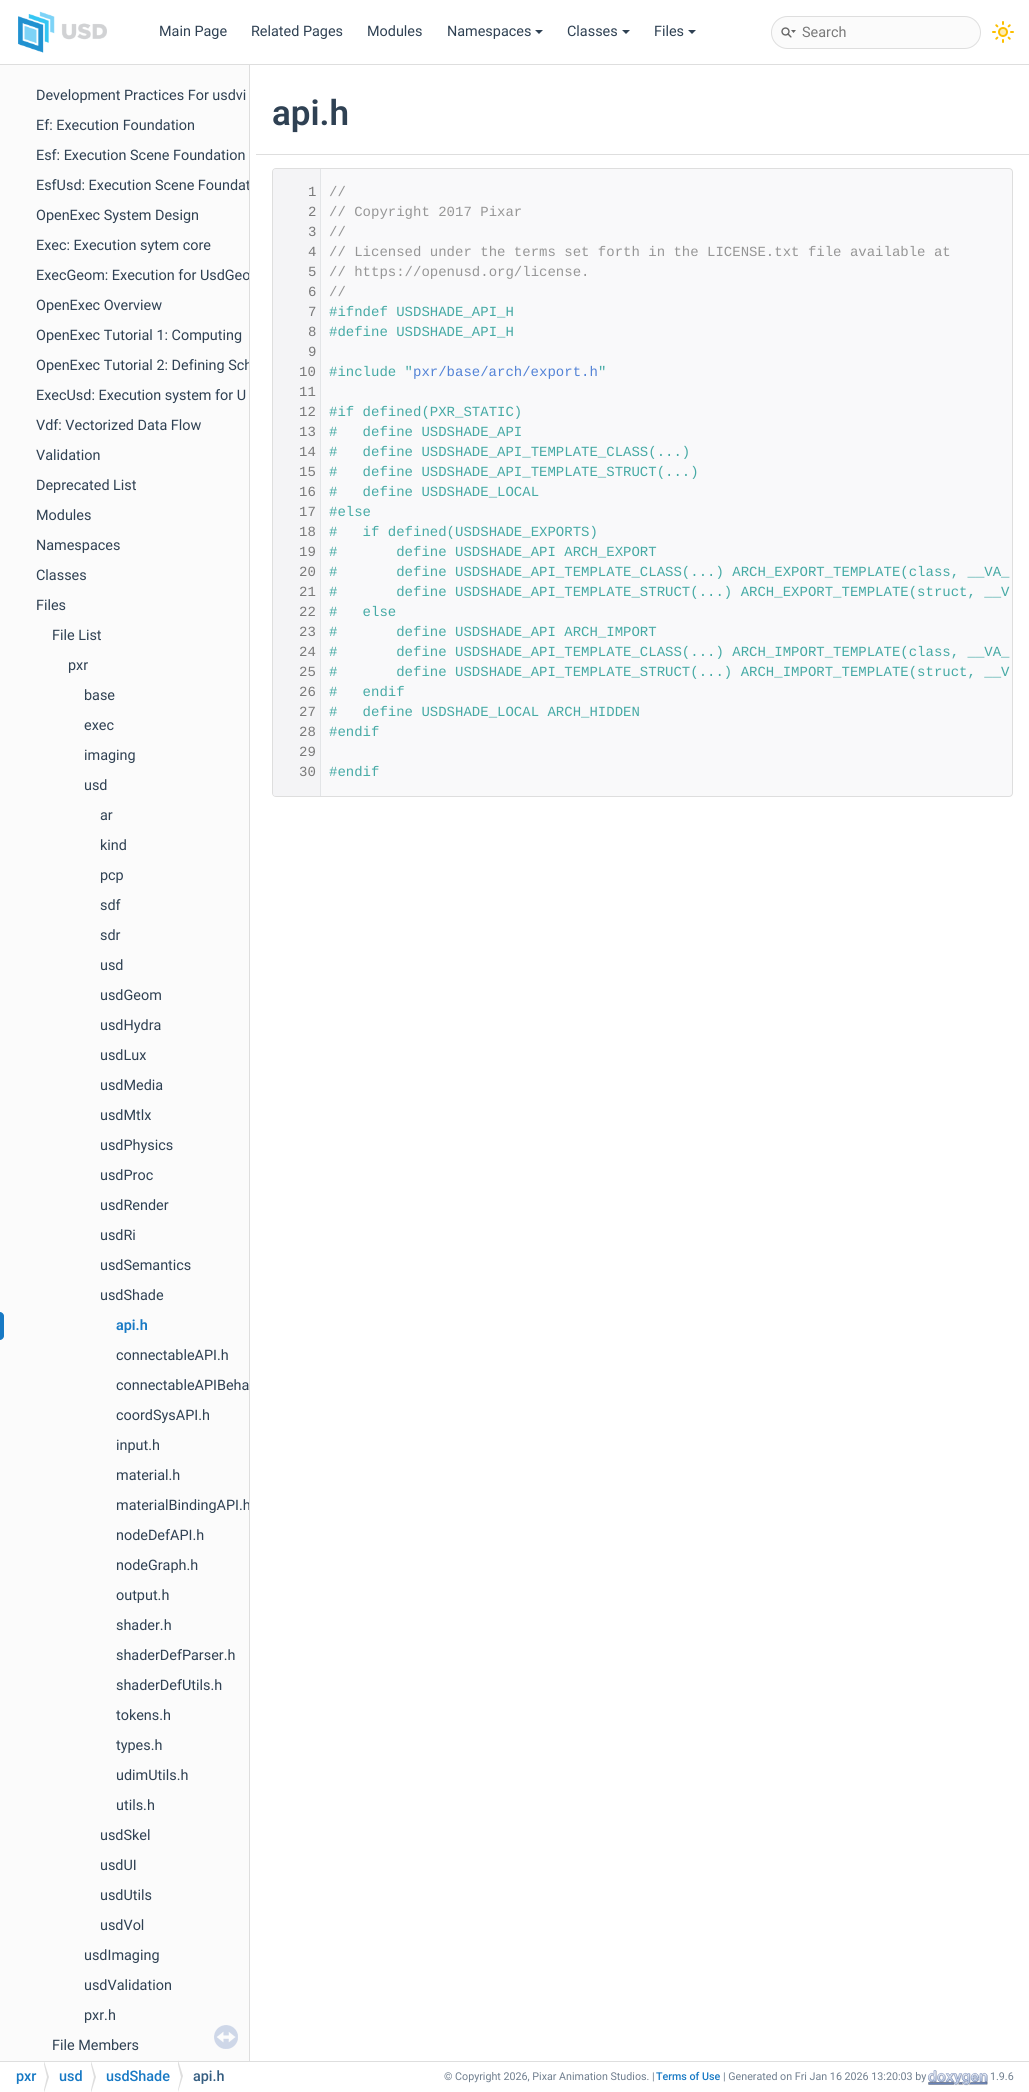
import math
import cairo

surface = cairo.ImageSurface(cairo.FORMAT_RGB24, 1029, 2092)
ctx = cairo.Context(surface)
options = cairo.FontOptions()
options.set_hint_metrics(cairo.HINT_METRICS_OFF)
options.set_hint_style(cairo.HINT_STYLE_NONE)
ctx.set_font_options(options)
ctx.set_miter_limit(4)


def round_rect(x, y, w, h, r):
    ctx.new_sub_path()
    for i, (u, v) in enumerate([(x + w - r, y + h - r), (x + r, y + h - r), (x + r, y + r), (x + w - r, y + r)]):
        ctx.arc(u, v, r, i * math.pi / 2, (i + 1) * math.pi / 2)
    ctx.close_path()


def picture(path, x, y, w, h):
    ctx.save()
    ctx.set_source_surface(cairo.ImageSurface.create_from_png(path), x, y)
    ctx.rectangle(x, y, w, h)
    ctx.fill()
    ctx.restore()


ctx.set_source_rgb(1, 1, 1)
ctx.paint()
ctx.set_source_rgb(0.871, 0.871, 0.871)
ctx.rectangle(0, 64, 1029, 1)
ctx.fill()
picture("img1.png", 18, 11, 89, 42)
ctx.select_font_face("Roboto")
ctx.set_font_size(14.4)
ctx.set_source_rgb(0.184, 0.255, 0.325)
ctx.move_to(159, 36)
ctx.show_text("Main Page")
ctx.move_to(251, 36)
ctx.show_text("Related Pages")
ctx.move_to(367, 36)
ctx.show_text("Modules")
ctx.move_to(447, 36)
ctx.show_text("Namespaces")
ctx.new_path()
ctx.move_to(535, 30)
ctx.line_to(543, 30)
ctx.line_to(539, 34)
ctx.close_path()
ctx.fill()
ctx.move_to(567, 36)
ctx.show_text("Classes")
ctx.new_path()
ctx.move_to(622, 30)
ctx.line_to(630, 30)
ctx.line_to(626, 34)
ctx.close_path()
ctx.fill()
ctx.move_to(654, 36)
ctx.show_text("Files")
ctx.new_path()
ctx.move_to(688, 30)
ctx.line_to(696, 30)
ctx.line_to(692, 34)
ctx.close_path()
ctx.fill()
ctx.set_source_rgb(0.984, 0.984, 0.984)
round_rect(771.5, 16.5, 209, 32, 16)
ctx.fill_preserve()
ctx.set_source_rgb(0.871, 0.871, 0.871)
ctx.set_line_width(1)
ctx.stroke()
picture("img2.png", 781, 27, 15, 11)
ctx.set_source_rgb(0.475, 0.475, 0.475)
ctx.move_to(802, 37)
ctx.show_text("Search")
picture("img3.png", 992, 21, 22, 22)
ctx.set_source_rgb(0.984, 0.984, 0.984)
ctx.rectangle(0, 65, 249, 1996)
ctx.fill()
ctx.set_source_rgb(0.184, 0.255, 0.325)
ctx.move_to(36, 100)
ctx.show_text("Development Practices For usdvi")
ctx.move_to(36, 130)
ctx.show_text("Ef: Execution Foundation")
ctx.move_to(36, 160)
ctx.show_text("Esf: Execution Scene Foundation")
ctx.move_to(36, 190)
ctx.show_text("EsfUsd: Execution Scene Foundat")
ctx.move_to(36, 220)
ctx.show_text("OpenExec System Design")
ctx.move_to(36, 250)
ctx.show_text("Exec: Execution sytem core")
ctx.move_to(36, 280)
ctx.show_text("ExecGeom: Execution for UsdGeo")
ctx.move_to(36, 310)
ctx.show_text("OpenExec Overview")
ctx.move_to(36, 340)
ctx.show_text("OpenExec Tutorial 1: Computing")
ctx.save()
ctx.rectangle(0, 65, 249, 1996)
ctx.clip()
ctx.move_to(36, 370)
ctx.show_text("OpenExec Tutorial 2: Defining Sch")
ctx.restore()
ctx.move_to(36, 400)
ctx.show_text("ExecUsd: Execution system for U")
ctx.move_to(36, 430)
ctx.show_text("Vdf: Vectorized Data Flow")
ctx.move_to(36, 460)
ctx.show_text("Validation")
ctx.move_to(36, 490)
ctx.show_text("Deprecated List")
ctx.move_to(36, 520)
ctx.show_text("Modules")
ctx.move_to(36, 550)
ctx.show_text("Namespaces")
ctx.move_to(36, 580)
ctx.show_text("Classes")
ctx.move_to(36, 610)
ctx.show_text("Files")
ctx.move_to(52, 640)
ctx.show_text("File List")
ctx.move_to(68, 670)
ctx.show_text("pxr")
ctx.move_to(84, 700)
ctx.show_text("base")
ctx.move_to(84, 730)
ctx.show_text("exec")
ctx.move_to(84, 760)
ctx.show_text("imaging")
ctx.move_to(84, 790)
ctx.show_text("usd")
ctx.move_to(100, 820)
ctx.show_text("ar")
ctx.move_to(100, 850)
ctx.show_text("kind")
ctx.move_to(100, 880)
ctx.show_text("pcp")
ctx.move_to(100, 910)
ctx.show_text("sdf")
ctx.move_to(100, 940)
ctx.show_text("sdr")
ctx.move_to(100, 970)
ctx.show_text("usd")
ctx.move_to(100, 1000)
ctx.show_text("usdGeom")
ctx.move_to(100, 1030)
ctx.show_text("usdHydra")
ctx.move_to(100, 1060)
ctx.show_text("usdLux")
ctx.move_to(100, 1090)
ctx.show_text("usdMedia")
ctx.move_to(100, 1120)
ctx.show_text("usdMtlx")
ctx.move_to(100, 1150)
ctx.show_text("usdPhysics")
ctx.move_to(100, 1180)
ctx.show_text("usdProc")
ctx.move_to(100, 1210)
ctx.show_text("usdRender")
ctx.move_to(100, 1240)
ctx.show_text("usdRi")
ctx.move_to(100, 1270)
ctx.show_text("usdSemantics")
ctx.move_to(100, 1300)
ctx.show_text("usdShade")
ctx.set_source_rgb(0.09, 0.475, 0.769)
ctx.new_path()
ctx.move_to(0, 1312)
ctx.curve_to(2, 1312, 4, 1314, 4, 1316)
ctx.line_to(4, 1336)
ctx.curve_to(4, 1338, 2, 1340, 0, 1340)
ctx.close_path()
ctx.fill()
ctx.select_font_face("Roboto SemiBold")
ctx.move_to(116, 1330)
ctx.show_text("api.h")
ctx.select_font_face("Roboto")
ctx.set_source_rgb(0.184, 0.255, 0.325)
ctx.move_to(116, 1360)
ctx.show_text("connectableAPI.h")
ctx.move_to(116, 1390)
ctx.show_text("connectableAPIBeha")
ctx.move_to(116, 1420)
ctx.show_text("coordSysAPI.h")
ctx.move_to(116, 1450)
ctx.show_text("input.h")
ctx.move_to(116, 1480)
ctx.show_text("material.h")
ctx.move_to(116, 1510)
ctx.show_text("materialBindingAPI.h")
ctx.move_to(116, 1540)
ctx.show_text("nodeDefAPI.h")
ctx.move_to(116, 1570)
ctx.show_text("nodeGraph.h")
ctx.move_to(116, 1600)
ctx.show_text("output.h")
ctx.move_to(116, 1630)
ctx.show_text("shader.h")
ctx.move_to(116, 1660)
ctx.show_text("shaderDefParser.h")
ctx.move_to(116, 1690)
ctx.show_text("shaderDefUtils.h")
ctx.move_to(116, 1720)
ctx.show_text("tokens.h")
ctx.move_to(116, 1750)
ctx.show_text("types.h")
ctx.move_to(116, 1780)
ctx.show_text("udimUtils.h")
ctx.move_to(116, 1810)
ctx.show_text("utils.h")
ctx.move_to(100, 1840)
ctx.show_text("usdSkel")
ctx.move_to(100, 1870)
ctx.show_text("usdUI")
ctx.move_to(100, 1900)
ctx.show_text("usdUtils")
ctx.move_to(100, 1930)
ctx.show_text("usdVol")
ctx.move_to(84, 1960)
ctx.show_text("usdImaging")
ctx.move_to(84, 1990)
ctx.show_text("usdValidation")
ctx.move_to(84, 2020)
ctx.show_text("pxr.h")
ctx.move_to(52, 2050)
ctx.show_text("File Members")
picture("img4.png", 214, 2025, 24, 24)
ctx.set_source_rgb(0.871, 0.871, 0.871)
ctx.rectangle(249, 65, 1, 1996)
ctx.fill()
ctx.rectangle(256, 154, 773, 1)
ctx.fill()
ctx.select_font_face("Roboto SemiBold")
ctx.set_font_size(35)
ctx.set_source_rgb(0.184, 0.255, 0.325)
ctx.move_to(272, 125)
ctx.show_text("api.h")
ctx.set_source_rgb(0.973, 0.976, 0.98)
round_rect(272.5, 168.5, 740, 628, 3.5)
ctx.fill_preserve()
ctx.set_source_rgb(0.871, 0.871, 0.871)
ctx.stroke()
ctx.set_source_rgb(0.89, 0.898, 0.906)
ctx.set_fill_rule(cairo.FILL_RULE_EVEN_ODD)
ctx.new_path()
ctx.move_to(276, 169)
ctx.curve_to(274, 169, 273, 170, 273, 172)
ctx.line_to(273, 793)
ctx.curve_to(273, 795, 274, 796, 276, 796)
ctx.line_to(321, 796)
ctx.line_to(321, 169)
ctx.close_path()
ctx.move_to(289, 182)
ctx.line_to(289, 202)
ctx.line_to(320, 202)
ctx.line_to(320, 182)
ctx.close_path()
ctx.fill()
ctx.set_source_rgb(0.957, 0.957, 0.961)
ctx.set_fill_rule(cairo.FILL_RULE_WINDING)
ctx.new_path()
ctx.move_to(276, 169)
ctx.curve_to(274, 169, 273, 170, 273, 172)
ctx.line_to(273, 793)
ctx.curve_to(273, 795, 274, 796, 276, 796)
ctx.line_to(320, 796)
ctx.line_to(320, 202)
ctx.line_to(289, 202)
ctx.line_to(289, 182)
ctx.line_to(320, 182)
ctx.line_to(320, 169)
ctx.close_path()
ctx.fill()
ctx.rectangle(289, 182, 31, 20)
ctx.fill()
ctx.select_font_face("Liberation Mono")
ctx.set_font_size(14)
ctx.set_source_rgb(0.475, 0.475, 0.475)
ctx.move_to(308, 196)
ctx.show_text("1")
ctx.set_source_rgb(0.588, 0.588, 0.588)
ctx.move_to(329, 196)
ctx.show_text("//")
ctx.set_source_rgb(0.475, 0.475, 0.475)
ctx.move_to(308, 216)
ctx.show_text("2")
ctx.set_source_rgb(0.588, 0.588, 0.588)
ctx.move_to(329, 216)
ctx.show_text("// Copyright 2017 Pixar")
ctx.set_source_rgb(0.475, 0.475, 0.475)
ctx.move_to(308, 236)
ctx.show_text("3")
ctx.set_source_rgb(0.588, 0.588, 0.588)
ctx.move_to(329, 236)
ctx.show_text("//")
ctx.set_source_rgb(0.475, 0.475, 0.475)
ctx.move_to(308, 256)
ctx.show_text("4")
ctx.set_source_rgb(0.588, 0.588, 0.588)
ctx.move_to(329, 256)
ctx.show_text("// Licensed under the terms set forth in the LICENSE.txt file available at")
ctx.set_source_rgb(0.475, 0.475, 0.475)
ctx.move_to(308, 276)
ctx.show_text("5")
ctx.set_source_rgb(0.588, 0.588, 0.588)
ctx.move_to(329, 276)
ctx.show_text("// https://openusd.org/license.")
ctx.set_source_rgb(0.475, 0.475, 0.475)
ctx.move_to(308, 296)
ctx.show_text("6")
ctx.set_source_rgb(0.588, 0.588, 0.588)
ctx.move_to(329, 296)
ctx.show_text("//")
ctx.set_source_rgb(0.475, 0.475, 0.475)
ctx.move_to(308, 316)
ctx.show_text("7")
ctx.set_source_rgb(0.275, 0.667, 0.647)
ctx.move_to(329, 316)
ctx.show_text("#ifndef USDSHADE_API_H")
ctx.set_source_rgb(0.475, 0.475, 0.475)
ctx.move_to(308, 336)
ctx.show_text("8")
ctx.set_source_rgb(0.275, 0.667, 0.647)
ctx.move_to(329, 336)
ctx.show_text("#define USDSHADE_API_H")
ctx.set_source_rgb(0.475, 0.475, 0.475)
ctx.move_to(308, 356)
ctx.show_text("9")
ctx.move_to(299, 376)
ctx.show_text("10")
ctx.set_source_rgb(0.275, 0.667, 0.647)
ctx.move_to(329, 376)
ctx.show_text("#include \"")
ctx.set_source_rgb(0.325, 0.514, 0.839)
ctx.move_to(413, 376)
ctx.show_text("pxr/base/arch/export.h")
ctx.set_source_rgb(0.275, 0.667, 0.647)
ctx.move_to(598, 376)
ctx.show_text("\"")
ctx.set_source_rgb(0.475, 0.475, 0.475)
ctx.move_to(299, 396)
ctx.show_text("11")
ctx.move_to(299, 416)
ctx.show_text("12")
ctx.set_source_rgb(0.275, 0.667, 0.647)
ctx.move_to(329, 416)
ctx.show_text("#if defined(PXR_STATIC)")
ctx.set_source_rgb(0.475, 0.475, 0.475)
ctx.move_to(299, 436)
ctx.show_text("13")
ctx.set_source_rgb(0.275, 0.667, 0.647)
ctx.move_to(329, 436)
ctx.show_text("#   define USDSHADE_API")
ctx.set_source_rgb(0.475, 0.475, 0.475)
ctx.move_to(299, 456)
ctx.show_text("14")
ctx.set_source_rgb(0.275, 0.667, 0.647)
ctx.move_to(329, 456)
ctx.show_text("#   define USDSHADE_API_TEMPLATE_CLASS(...)")
ctx.set_source_rgb(0.475, 0.475, 0.475)
ctx.move_to(299, 476)
ctx.show_text("15")
ctx.set_source_rgb(0.275, 0.667, 0.647)
ctx.move_to(329, 476)
ctx.show_text("#   define USDSHADE_API_TEMPLATE_STRUCT(...)")
ctx.set_source_rgb(0.475, 0.475, 0.475)
ctx.move_to(299, 496)
ctx.show_text("16")
ctx.set_source_rgb(0.275, 0.667, 0.647)
ctx.move_to(329, 496)
ctx.show_text("#   define USDSHADE_LOCAL")
ctx.set_source_rgb(0.475, 0.475, 0.475)
ctx.move_to(299, 516)
ctx.show_text("17")
ctx.set_source_rgb(0.275, 0.667, 0.647)
ctx.move_to(329, 516)
ctx.show_text("#else")
ctx.set_source_rgb(0.475, 0.475, 0.475)
ctx.move_to(299, 536)
ctx.show_text("18")
ctx.set_source_rgb(0.275, 0.667, 0.647)
ctx.move_to(329, 536)
ctx.show_text("#   if defined(USDSHADE_EXPORTS)")
ctx.set_source_rgb(0.475, 0.475, 0.475)
ctx.move_to(299, 556)
ctx.show_text("19")
ctx.set_source_rgb(0.275, 0.667, 0.647)
ctx.move_to(329, 556)
ctx.show_text("#       define USDSHADE_API ARCH_EXPORT")
ctx.set_source_rgb(0.475, 0.475, 0.475)
ctx.move_to(299, 576)
ctx.show_text("20")
ctx.set_source_rgb(0.275, 0.667, 0.647)
ctx.move_to(329, 576)
ctx.show_text("#       define USDSHADE_API_TEMPLATE_CLASS(...) ARCH_EXPORT_TEMPLATE(class, __VA_")
ctx.set_source_rgb(0.475, 0.475, 0.475)
ctx.move_to(299, 596)
ctx.show_text("21")
ctx.set_source_rgb(0.275, 0.667, 0.647)
ctx.move_to(329, 596)
ctx.show_text("#       define USDSHADE_API_TEMPLATE_STRUCT(...) ARCH_EXPORT_TEMPLATE(struct, __V")
ctx.set_source_rgb(0.475, 0.475, 0.475)
ctx.move_to(299, 616)
ctx.show_text("22")
ctx.set_source_rgb(0.275, 0.667, 0.647)
ctx.move_to(329, 616)
ctx.show_text("#   else")
ctx.set_source_rgb(0.475, 0.475, 0.475)
ctx.move_to(299, 636)
ctx.show_text("23")
ctx.set_source_rgb(0.275, 0.667, 0.647)
ctx.move_to(329, 636)
ctx.show_text("#       define USDSHADE_API ARCH_IMPORT")
ctx.set_source_rgb(0.475, 0.475, 0.475)
ctx.move_to(299, 656)
ctx.show_text("24")
ctx.set_source_rgb(0.275, 0.667, 0.647)
ctx.move_to(329, 656)
ctx.show_text("#       define USDSHADE_API_TEMPLATE_CLASS(...) ARCH_IMPORT_TEMPLATE(class, __VA_")
ctx.set_source_rgb(0.475, 0.475, 0.475)
ctx.move_to(299, 676)
ctx.show_text("25")
ctx.set_source_rgb(0.275, 0.667, 0.647)
ctx.move_to(329, 676)
ctx.show_text("#       define USDSHADE_API_TEMPLATE_STRUCT(...) ARCH_IMPORT_TEMPLATE(struct, __V")
ctx.set_source_rgb(0.475, 0.475, 0.475)
ctx.move_to(299, 696)
ctx.show_text("26")
ctx.set_source_rgb(0.275, 0.667, 0.647)
ctx.move_to(329, 696)
ctx.show_text("#   endif")
ctx.set_source_rgb(0.475, 0.475, 0.475)
ctx.move_to(299, 716)
ctx.show_text("27")
ctx.set_source_rgb(0.275, 0.667, 0.647)
ctx.move_to(329, 716)
ctx.show_text("#   define USDSHADE_LOCAL ARCH_HIDDEN")
ctx.set_source_rgb(0.475, 0.475, 0.475)
ctx.move_to(299, 736)
ctx.show_text("28")
ctx.set_source_rgb(0.275, 0.667, 0.647)
ctx.move_to(329, 736)
ctx.show_text("#endif")
ctx.set_source_rgb(0.475, 0.475, 0.475)
ctx.move_to(299, 756)
ctx.show_text("29")
ctx.move_to(299, 776)
ctx.show_text("30")
ctx.set_source_rgb(0.275, 0.667, 0.647)
ctx.move_to(329, 776)
ctx.show_text("#endif")
ctx.set_source_rgb(0.871, 0.871, 0.871)
ctx.rectangle(0, 2061, 1029, 1)
ctx.fill()
ctx.select_font_face("Roboto Medium")
ctx.set_font_size(14.4)
ctx.set_source_rgb(0.09, 0.475, 0.769)
ctx.move_to(16, 2081)
ctx.show_text("pxr")
ctx.move_to(59, 2081)
ctx.show_text("usd")
ctx.set_source_rgb(0.871, 0.871, 0.871)
ctx.new_path()
ctx.move_to(44, 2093)
ctx.line_to(44, 2061)
ctx.line_to(49, 2077)
ctx.close_path()
ctx.move_to(91, 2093)
ctx.line_to(91, 2061)
ctx.line_to(96, 2077)
ctx.close_path()
ctx.fill()
ctx.save()
ctx.rectangle(0, 2062, 1029, 30)
ctx.clip()
ctx.set_source_rgb(1, 1, 1)
ctx.new_path()
ctx.move_to(42, 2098)
ctx.line_to(42, 2056)
ctx.line_to(47, 2077)
ctx.close_path()
ctx.move_to(89, 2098)
ctx.line_to(89, 2056)
ctx.line_to(94, 2077)
ctx.close_path()
ctx.fill()
ctx.restore()
ctx.set_source_rgb(0.09, 0.475, 0.769)
ctx.move_to(106, 2081)
ctx.show_text("usdShade")
ctx.set_source_rgb(0.871, 0.871, 0.871)
ctx.new_path()
ctx.move_to(178, 2092)
ctx.line_to(178, 2060)
ctx.line_to(183, 2076)
ctx.close_path()
ctx.fill()
ctx.save()
ctx.rectangle(0, 2062, 1029, 30)
ctx.clip()
ctx.set_source_rgb(1, 1, 1)
ctx.new_path()
ctx.move_to(176, 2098)
ctx.line_to(176, 2056)
ctx.line_to(181, 2077)
ctx.close_path()
ctx.fill()
ctx.restore()
ctx.set_source_rgb(0.2, 0.361, 0.502)
ctx.move_to(193, 2081)
ctx.show_text("api.h")
ctx.select_font_face("Roboto")
ctx.set_font_size(10.7)
ctx.set_source_rgb(0.435, 0.494, 0.557)
ctx.move_to(444, 2080)
ctx.show_text("© Copyright 2026, Pixar Animation Studios. |")
ctx.select_font_face("Roboto Medium")
ctx.set_source_rgb(0.09, 0.475, 0.769)
ctx.move_to(656, 2080)
ctx.show_text("Terms of Use")
ctx.select_font_face("Roboto")
ctx.set_source_rgb(0.435, 0.494, 0.557)
ctx.move_to(723, 2080)
ctx.show_text("| Generated on Fri Jan 16 2026 13:20:03 by")
picture("img5.png", 928, 2070, 60, 16)
ctx.move_to(990, 2080)
ctx.show_text("1.9.6")
surface.write_to_png("page.png")
